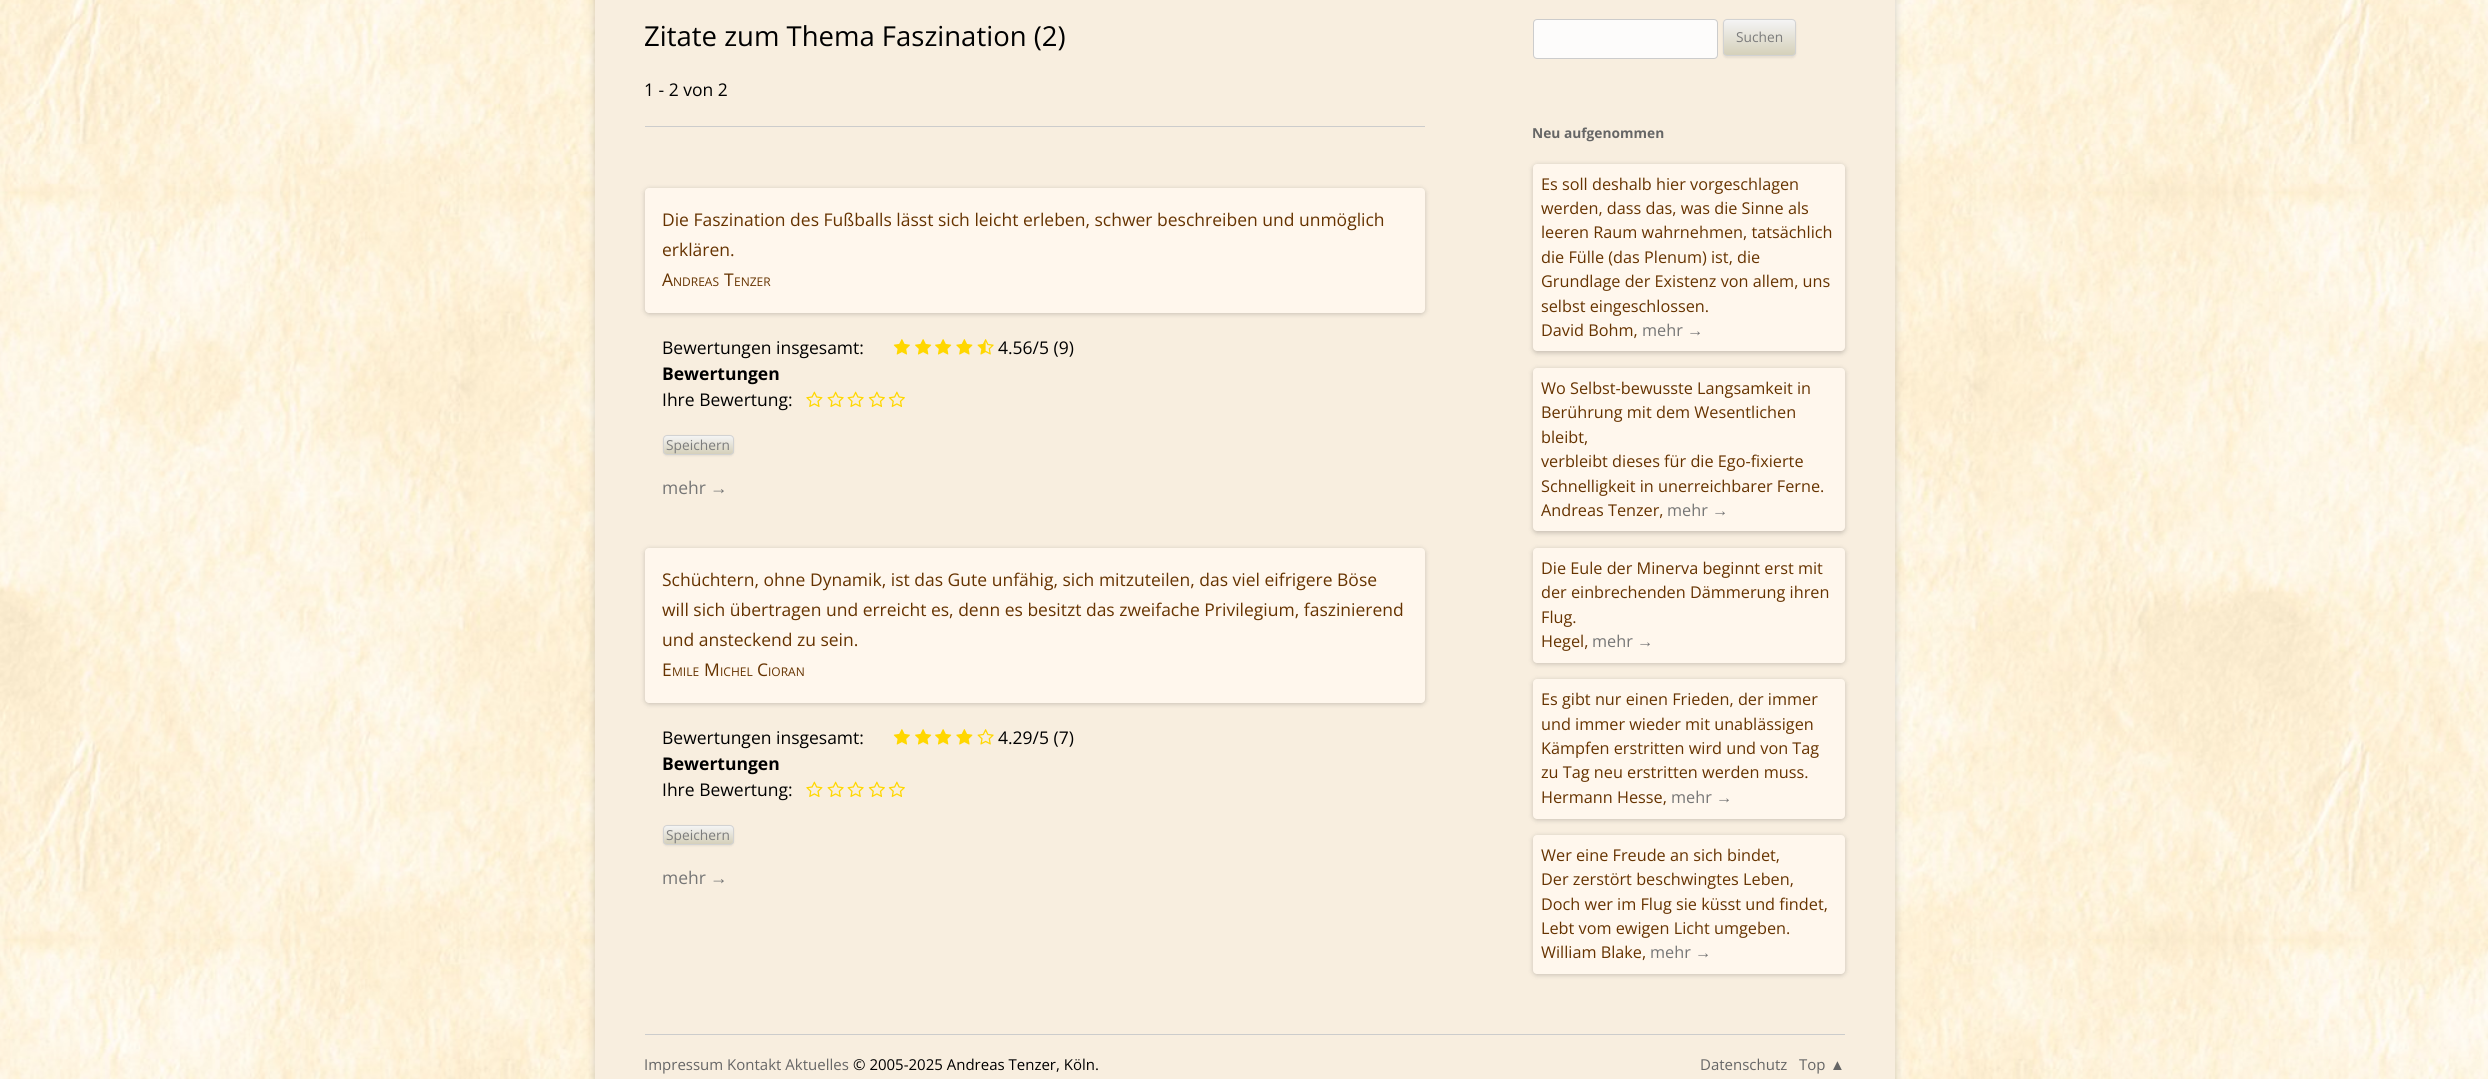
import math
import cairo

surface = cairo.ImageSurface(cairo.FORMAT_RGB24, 2488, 1079)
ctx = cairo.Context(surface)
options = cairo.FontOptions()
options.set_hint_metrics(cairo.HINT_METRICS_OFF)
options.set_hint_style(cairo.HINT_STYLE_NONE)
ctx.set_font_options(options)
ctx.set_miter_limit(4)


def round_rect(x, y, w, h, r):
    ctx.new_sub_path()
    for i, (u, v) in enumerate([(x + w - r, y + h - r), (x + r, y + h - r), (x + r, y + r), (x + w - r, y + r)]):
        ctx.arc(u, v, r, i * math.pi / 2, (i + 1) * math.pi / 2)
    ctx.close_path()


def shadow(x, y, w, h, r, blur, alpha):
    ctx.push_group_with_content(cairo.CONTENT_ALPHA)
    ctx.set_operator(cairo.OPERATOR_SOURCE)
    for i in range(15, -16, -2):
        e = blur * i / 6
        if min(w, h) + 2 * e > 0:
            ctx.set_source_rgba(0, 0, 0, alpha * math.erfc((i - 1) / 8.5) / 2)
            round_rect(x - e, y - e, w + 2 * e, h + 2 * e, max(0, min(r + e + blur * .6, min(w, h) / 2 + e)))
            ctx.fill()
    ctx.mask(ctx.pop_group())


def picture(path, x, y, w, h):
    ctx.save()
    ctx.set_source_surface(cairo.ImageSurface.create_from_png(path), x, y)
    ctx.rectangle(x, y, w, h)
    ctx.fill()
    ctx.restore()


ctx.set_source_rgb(1, 1, 1)
ctx.paint()
picture("img1.png", 0, 0, 2488, 1079)
ctx.set_source_rgb(0.392, 0.392, 0.392)
shadow(595, -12, 1300, 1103, 0, 4, 0.3)
ctx.set_source_rgb(0.969, 0.933, 0.875)
ctx.rectangle(595, 0, 1300, 1079)
ctx.fill()
ctx.set_source_rgb(0.8, 0.8, 0.8)
ctx.rectangle(645, 126, 780, 1)
ctx.fill()
ctx.select_font_face("Open Sans")
ctx.set_font_size(27.5)
ctx.set_source_rgb(0, 0, 0)
ctx.move_to(644, 46)
ctx.show_text("Zitate zum Thema Faszination (2)")
ctx.set_font_size(17.5)
ctx.move_to(644, 96)
ctx.show_text("1 - 2 von 2")
ctx.set_source_rgb(0, 0, 0)
shadow(645, 189, 780, 125, 4, 2.5, 0.2)
ctx.set_source_rgb(1, 0.965, 0.929)
round_rect(645, 188, 780, 125, 4)
ctx.fill()
ctx.set_source_rgb(0.4, 0.2, 0)
ctx.move_to(662, 226)
ctx.show_text("Die Faszination des Fußballs lässt sich leicht erleben, schwer beschreiben und unmöglich")
ctx.move_to(662, 256)
ctx.show_text("erklären.")
ctx.move_to(662, 286)
ctx.show_text("A")
ctx.set_font_size(12)
ctx.move_to(673, 286)
ctx.show_text("NDREAS")
ctx.set_font_size(17.5)
ctx.move_to(724, 286)
ctx.show_text("T")
ctx.set_font_size(12)
ctx.move_to(734, 286)
ctx.show_text("ENZER")
ctx.set_font_size(17.5)
ctx.set_source_rgb(0, 0, 0)
ctx.move_to(662, 354)
ctx.show_text("Bewertungen insgesamt:")
picture("img2.png", 893, 339, 17, 16)
picture("img3.png", 915, 339, 17, 16)
picture("img3.png", 935, 339, 17, 16)
picture("img4.png", 956, 339, 17, 16)
picture("img5.png", 977, 339, 17, 16)
ctx.move_to(998, 354)
ctx.show_text("4.56/5 (9)")
ctx.select_font_face("Open Sans", cairo.FONT_SLANT_NORMAL, cairo.FONT_WEIGHT_BOLD)
ctx.move_to(662, 380)
ctx.show_text("Bewertungen")
ctx.select_font_face("Open Sans")
ctx.move_to(662, 406)
ctx.show_text("Ihre Bewertung:")
picture("img6.png", 806, 391, 17, 16)
picture("img7.png", 827, 391, 17, 16)
picture("img7.png", 847, 391, 17, 16)
picture("img8.png", 868, 391, 17, 16)
picture("img8.png", 888, 391, 17, 16)
ctx.set_source_rgb(0.251, 0.251, 0.251)
shadow(663, 436, 71, 20, 4, 1, 0.1)
ctx.save()
round_rect(663, 435, 71, 20, 4)
ctx.clip()
gradient = cairo.LinearGradient(698, 436, 698, 454)
gradient.add_color_stop_rgba(0, 0.957, 0.957, 0.957, 1)
gradient.add_color_stop_rgba(1, 0.835, 0.816, 0.729, 1)
ctx.set_source(gradient)
ctx.rectangle(663, 436, 71, 18)
ctx.fill()
ctx.restore()
round_rect(663.5, 435.5, 70, 19, 3.5)
ctx.set_source_rgb(0.824, 0.824, 0.824)
ctx.set_line_width(1)
ctx.stroke()
ctx.set_font_size(13.75)
ctx.set_source_rgb(0.486, 0.486, 0.486)
ctx.move_to(666, 450)
ctx.show_text("Speichern")
ctx.set_font_size(17.5)
ctx.set_source_rgb(0.459, 0.459, 0.459)
ctx.move_to(662, 494)
ctx.show_text("mehr")
ctx.select_font_face("Liberation Sans")
ctx.move_to(710, 494)
ctx.show_text("→")
ctx.set_source_rgb(0, 0, 0)
shadow(645, 549, 780, 155, 4, 2.5, 0.2)
ctx.set_source_rgb(1, 0.965, 0.929)
round_rect(645, 548, 780, 155, 4)
ctx.fill()
ctx.select_font_face("Open Sans")
ctx.set_source_rgb(0.4, 0.2, 0)
ctx.move_to(662, 586)
ctx.show_text("Schüchtern, ohne Dynamik, ist das Gute unfähig, sich mitzuteilen, das viel eifrigere Böse")
ctx.move_to(662, 616)
ctx.show_text("will sich übertragen und erreicht es, denn es besitzt das zweifache Privilegium, faszinierend")
ctx.move_to(662, 646)
ctx.show_text("und ansteckend zu sein.")
ctx.move_to(662, 676)
ctx.show_text("E")
ctx.set_font_size(12)
ctx.move_to(672, 676)
ctx.show_text("MILE")
ctx.set_font_size(17.5)
ctx.move_to(704, 676)
ctx.show_text("M")
ctx.set_font_size(12)
ctx.move_to(720, 676)
ctx.show_text("ICHEL")
ctx.set_font_size(17.5)
ctx.move_to(757, 676)
ctx.show_text("C")
ctx.set_font_size(12)
ctx.move_to(768, 676)
ctx.show_text("IORAN")
ctx.set_font_size(17.5)
ctx.set_source_rgb(0, 0, 0)
ctx.move_to(662, 744)
ctx.show_text("Bewertungen insgesamt:")
picture("img2.png", 893, 729, 17, 16)
picture("img3.png", 915, 729, 17, 16)
picture("img3.png", 935, 729, 17, 16)
picture("img4.png", 956, 729, 17, 16)
picture("img9.png", 977, 729, 17, 16)
ctx.move_to(998, 744)
ctx.show_text("4.29/5 (7)")
ctx.select_font_face("Open Sans", cairo.FONT_SLANT_NORMAL, cairo.FONT_WEIGHT_BOLD)
ctx.move_to(662, 770)
ctx.show_text("Bewertungen")
ctx.select_font_face("Open Sans")
ctx.move_to(662, 796)
ctx.show_text("Ihre Bewertung:")
picture("img6.png", 806, 781, 17, 16)
picture("img7.png", 827, 781, 17, 16)
picture("img7.png", 847, 781, 17, 16)
picture("img8.png", 868, 781, 17, 16)
picture("img8.png", 888, 781, 17, 16)
ctx.set_source_rgb(0.251, 0.251, 0.251)
shadow(663, 826, 71, 20, 4, 1, 0.1)
ctx.save()
round_rect(663, 825, 71, 20, 4)
ctx.clip()
gradient = cairo.LinearGradient(698, 826, 698, 844)
gradient.add_color_stop_rgba(0, 0.957, 0.957, 0.957, 1)
gradient.add_color_stop_rgba(1, 0.835, 0.816, 0.729, 1)
ctx.set_source(gradient)
ctx.rectangle(663, 826, 71, 18)
ctx.fill()
ctx.restore()
round_rect(663.5, 825.5, 70, 19, 3.5)
ctx.set_source_rgb(0.824, 0.824, 0.824)
ctx.stroke()
ctx.set_font_size(13.75)
ctx.set_source_rgb(0.486, 0.486, 0.486)
ctx.move_to(666, 840)
ctx.show_text("Speichern")
ctx.set_font_size(17.5)
ctx.set_source_rgb(0.459, 0.459, 0.459)
ctx.move_to(662, 884)
ctx.show_text("mehr")
ctx.select_font_face("Liberation Sans")
ctx.move_to(710, 884)
ctx.show_text("→")
ctx.set_source_rgb(0.992, 0.988, 0.984)
round_rect(1533.5, 19.5, 184, 39, 3.5)
ctx.fill_preserve()
ctx.set_source_rgb(0.8, 0.8, 0.8)
ctx.stroke()
ctx.set_source_rgb(0.251, 0.251, 0.251)
shadow(1723, 20, 73, 38, 4, 1, 0.1)
ctx.save()
round_rect(1723, 19, 73, 37, 4)
ctx.clip()
gradient = cairo.LinearGradient(1759, 20, 1759, 55)
gradient.add_color_stop_rgba(0, 0.957, 0.957, 0.957, 1)
gradient.add_color_stop_rgba(1, 0.835, 0.816, 0.729, 1)
ctx.set_source(gradient)
ctx.rectangle(1723, 20, 73, 35)
ctx.fill()
ctx.restore()
round_rect(1723.5, 19.5, 72, 36, 3.5)
ctx.set_source_rgb(0.824, 0.824, 0.824)
ctx.stroke()
ctx.select_font_face("Open Sans")
ctx.set_font_size(13.75)
ctx.set_source_rgb(0.486, 0.486, 0.486)
ctx.move_to(1736, 42)
ctx.show_text("Suchen")
ctx.select_font_face("Open Sans", cairo.FONT_SLANT_NORMAL, cairo.FONT_WEIGHT_BOLD)
ctx.set_source_rgb(0.4, 0.4, 0.4)
ctx.move_to(1532, 138)
ctx.show_text("Neu aufgenommen")
ctx.set_source_rgb(0, 0, 0)
shadow(1533, 165, 312, 188, 4, 2.5, 0.2)
ctx.set_source_rgb(1, 0.965, 0.929)
round_rect(1533, 164, 312, 187, 4)
ctx.fill()
ctx.select_font_face("Open Sans")
ctx.set_font_size(16.25)
ctx.set_source_rgb(0.4, 0.2, 0)
ctx.move_to(1541, 190)
ctx.show_text("Es soll deshalb hier vorgeschlagen")
ctx.move_to(1541, 214)
ctx.show_text("werden, dass das, was die Sinne als")
ctx.move_to(1541, 238)
ctx.show_text("leeren Raum wahrnehmen, tatsächlich")
ctx.move_to(1541, 263)
ctx.show_text("die Fülle (das Plenum) ist, die")
ctx.move_to(1541, 287)
ctx.show_text("Grundlage der Existenz von allem, uns")
ctx.move_to(1541, 312)
ctx.show_text("selbst eingeschlossen.")
ctx.move_to(1541, 336)
ctx.show_text("David Bohm,")
ctx.set_source_rgb(0.459, 0.459, 0.459)
ctx.move_to(1642, 336)
ctx.show_text("mehr")
ctx.select_font_face("Liberation Sans")
ctx.move_to(1687, 336)
ctx.show_text("→")
ctx.set_source_rgb(0, 0, 0)
shadow(1533, 369, 312, 164, 4, 2.5, 0.2)
ctx.set_source_rgb(1, 0.965, 0.929)
round_rect(1533, 368, 312, 163, 4)
ctx.fill()
ctx.select_font_face("Open Sans")
ctx.set_source_rgb(0.4, 0.2, 0)
ctx.move_to(1541, 394)
ctx.show_text("Wo Selbst-bewusste Langsamkeit in")
ctx.move_to(1541, 418)
ctx.show_text("Berührung mit dem Wesentlichen")
ctx.move_to(1541, 443)
ctx.show_text("bleibt,")
ctx.move_to(1541, 467)
ctx.show_text("verbleibt dieses für die Ego-fixierte")
ctx.move_to(1541, 492)
ctx.show_text("Schnelligkeit in unerreichbarer Ferne.")
ctx.move_to(1541, 516)
ctx.show_text("Andreas Tenzer,")
ctx.set_source_rgb(0.459, 0.459, 0.459)
ctx.move_to(1667, 516)
ctx.show_text("mehr")
ctx.select_font_face("Liberation Sans")
ctx.move_to(1712, 516)
ctx.show_text("→")
ctx.set_source_rgb(0, 0, 0)
shadow(1533, 549, 312, 115, 4, 2.5, 0.2)
ctx.set_source_rgb(1, 0.965, 0.929)
round_rect(1533, 548, 312, 115, 4)
ctx.fill()
ctx.select_font_face("Open Sans")
ctx.set_source_rgb(0.4, 0.2, 0)
ctx.move_to(1541, 574)
ctx.show_text("Die Eule der Minerva beginnt erst mit")
ctx.move_to(1541, 598)
ctx.show_text("der einbrechenden Dämmerung ihren")
ctx.move_to(1541, 623)
ctx.show_text("Flug.")
ctx.move_to(1541, 647)
ctx.show_text("Hegel,")
ctx.set_source_rgb(0.459, 0.459, 0.459)
ctx.move_to(1592, 647)
ctx.show_text("mehr")
ctx.select_font_face("Liberation Sans")
ctx.move_to(1637, 647)
ctx.show_text("→")
ctx.set_source_rgb(0, 0, 0)
shadow(1533, 680, 312, 140, 4, 2.5, 0.2)
ctx.set_source_rgb(1, 0.965, 0.929)
round_rect(1533, 679, 312, 140, 4)
ctx.fill()
ctx.select_font_face("Open Sans")
ctx.set_source_rgb(0.4, 0.2, 0)
ctx.move_to(1541, 705)
ctx.show_text("Es gibt nur einen Frieden, der immer")
ctx.move_to(1541, 730)
ctx.show_text("und immer wieder mit unablässigen")
ctx.move_to(1541, 754)
ctx.show_text("Kämpfen erstritten wird und von Tag")
ctx.move_to(1541, 778)
ctx.show_text("zu Tag neu erstritten werden muss.")
ctx.move_to(1541, 803)
ctx.show_text("Hermann Hesse,")
ctx.set_source_rgb(0.459, 0.459, 0.459)
ctx.move_to(1671, 803)
ctx.show_text("mehr")
ctx.select_font_face("Liberation Sans")
ctx.move_to(1716, 803)
ctx.show_text("→")
ctx.set_source_rgb(0, 0, 0)
shadow(1533, 836, 312, 139, 4, 2.5, 0.2)
ctx.set_source_rgb(1, 0.965, 0.929)
round_rect(1533, 835, 312, 139, 4)
ctx.fill()
ctx.select_font_face("Open Sans")
ctx.set_source_rgb(0.4, 0.2, 0)
ctx.move_to(1541, 861)
ctx.show_text("Wer eine Freude an sich bindet,")
ctx.move_to(1541, 885)
ctx.show_text("Der zerstört beschwingtes Leben,")
ctx.move_to(1541, 910)
ctx.show_text("Doch wer im Flug sie küsst und findet,")
ctx.move_to(1541, 934)
ctx.show_text("Lebt vom ewigen Licht umgeben.")
ctx.move_to(1541, 958)
ctx.show_text("William Blake,")
ctx.set_source_rgb(0.459, 0.459, 0.459)
ctx.move_to(1650, 958)
ctx.show_text("mehr")
ctx.select_font_face("Liberation Sans")
ctx.move_to(1695, 958)
ctx.show_text("→")
ctx.set_source_rgb(0.8, 0.8, 0.8)
ctx.rectangle(645, 1034, 1200, 1)
ctx.fill()
ctx.select_font_face("Open Sans")
ctx.set_font_size(15)
ctx.set_source_rgb(0.4, 0.4, 0.4)
ctx.move_to(644, 1070)
ctx.show_text("Impressum Kontakt Aktuelles")
ctx.set_source_rgb(0, 0, 0)
ctx.move_to(853, 1070)
ctx.show_text("© 2005-2025 Andreas Tenzer, Köln.")
ctx.set_source_rgb(0.4, 0.4, 0.4)
ctx.move_to(1700, 1070)
ctx.show_text("Datenschutz")
ctx.move_to(1799, 1070)
ctx.show_text("Top")
ctx.select_font_face("Liberation Sans")
ctx.move_to(1830, 1070)
ctx.show_text("▲")
surface.write_to_png("page.png")
